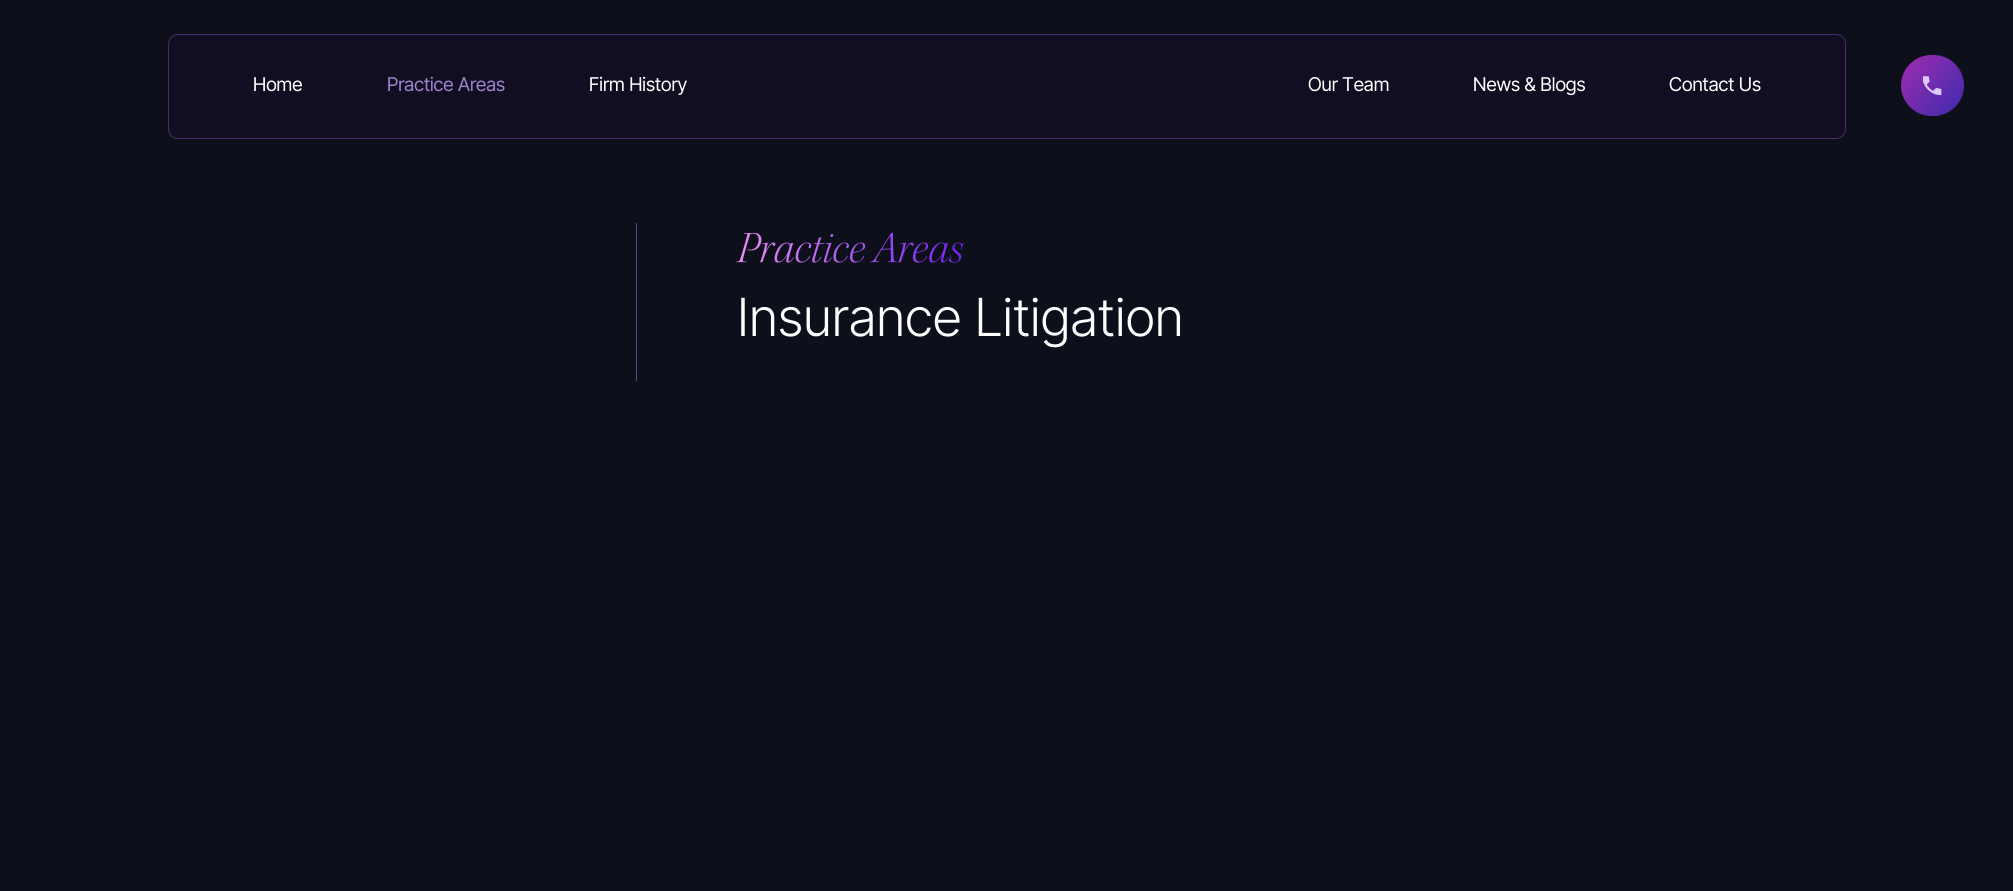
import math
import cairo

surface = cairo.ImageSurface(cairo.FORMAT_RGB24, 2013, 891)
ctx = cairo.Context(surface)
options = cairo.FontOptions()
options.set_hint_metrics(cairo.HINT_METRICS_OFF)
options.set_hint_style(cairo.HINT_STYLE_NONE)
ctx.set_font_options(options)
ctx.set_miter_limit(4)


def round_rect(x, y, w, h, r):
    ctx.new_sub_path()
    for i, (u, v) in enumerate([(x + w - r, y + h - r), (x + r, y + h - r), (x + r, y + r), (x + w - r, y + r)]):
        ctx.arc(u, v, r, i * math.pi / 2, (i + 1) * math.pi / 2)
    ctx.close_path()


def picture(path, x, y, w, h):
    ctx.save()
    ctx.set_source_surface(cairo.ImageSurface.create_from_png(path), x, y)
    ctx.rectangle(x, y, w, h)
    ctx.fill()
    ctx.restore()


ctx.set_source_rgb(0.051, 0.059, 0.102)
ctx.paint()
ctx.set_source_rgb(0.071, 0.055, 0.129)
round_rect(168.5, 34.5, 1677, 104, 9.5)
ctx.fill_preserve()
ctx.set_source_rgb(0.282, 0.176, 0.42)
ctx.set_line_width(1)
ctx.stroke()
ctx.select_font_face("Inter Tight")
ctx.set_font_size(19)
ctx.set_source_rgb(1, 1, 1)
ctx.move_to(253, 91)
ctx.show_text("Home")
ctx.set_source_rgb(0.62, 0.514, 0.82)
ctx.move_to(387, 91)
ctx.show_text("Practice Areas")
ctx.set_source_rgb(1, 1, 1)
ctx.move_to(589, 91)
ctx.show_text("Firm History")
ctx.move_to(1308, 91)
ctx.show_text("Our Team")
ctx.move_to(1473, 91)
ctx.show_text("News & Blogs")
ctx.move_to(1669, 91)
ctx.show_text("Contact Us")
gradient = cairo.LinearGradient(1899, 58, 1966, 114)
gradient.add_color_stop_rgba(0, 0.624, 0.173, 0.686, 1)
gradient.add_color_stop_rgba(1, 0.235, 0.169, 0.678, 1)
ctx.set_source(gradient)
round_rect(1901, 55, 63, 61, 30.5)
ctx.fill()
picture("img1.png", 1923, 76, 19, 19)
ctx.set_source_rgb(0.365, 0.278, 0.518)
ctx.rectangle(636, 223, 1, 158)
ctx.fill()
ctx.select_font_face("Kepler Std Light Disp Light", cairo.FONT_SLANT_ITALIC)
ctx.set_font_size(45)
gradient = cairo.LinearGradient(737, 249, 963, 249)
gradient.add_color_stop_rgba(0, 0.62, 0.514, 0.82, 1)
gradient.add_color_stop_rgba(0, 0.914, 0.561, 0.961, 1)
gradient.add_color_stop_rgba(1, 0.451, 0.141, 0.949, 1)
ctx.set_source(gradient)
ctx.move_to(737, 262)
ctx.show_text("Practice Areas")
ctx.select_font_face("Inter Tight Light")
ctx.set_font_size(52.5)
ctx.set_source_rgb(1, 1, 1)
ctx.move_to(737, 336)
ctx.show_text("Insurance Litigation")
surface.write_to_png("page.png")
